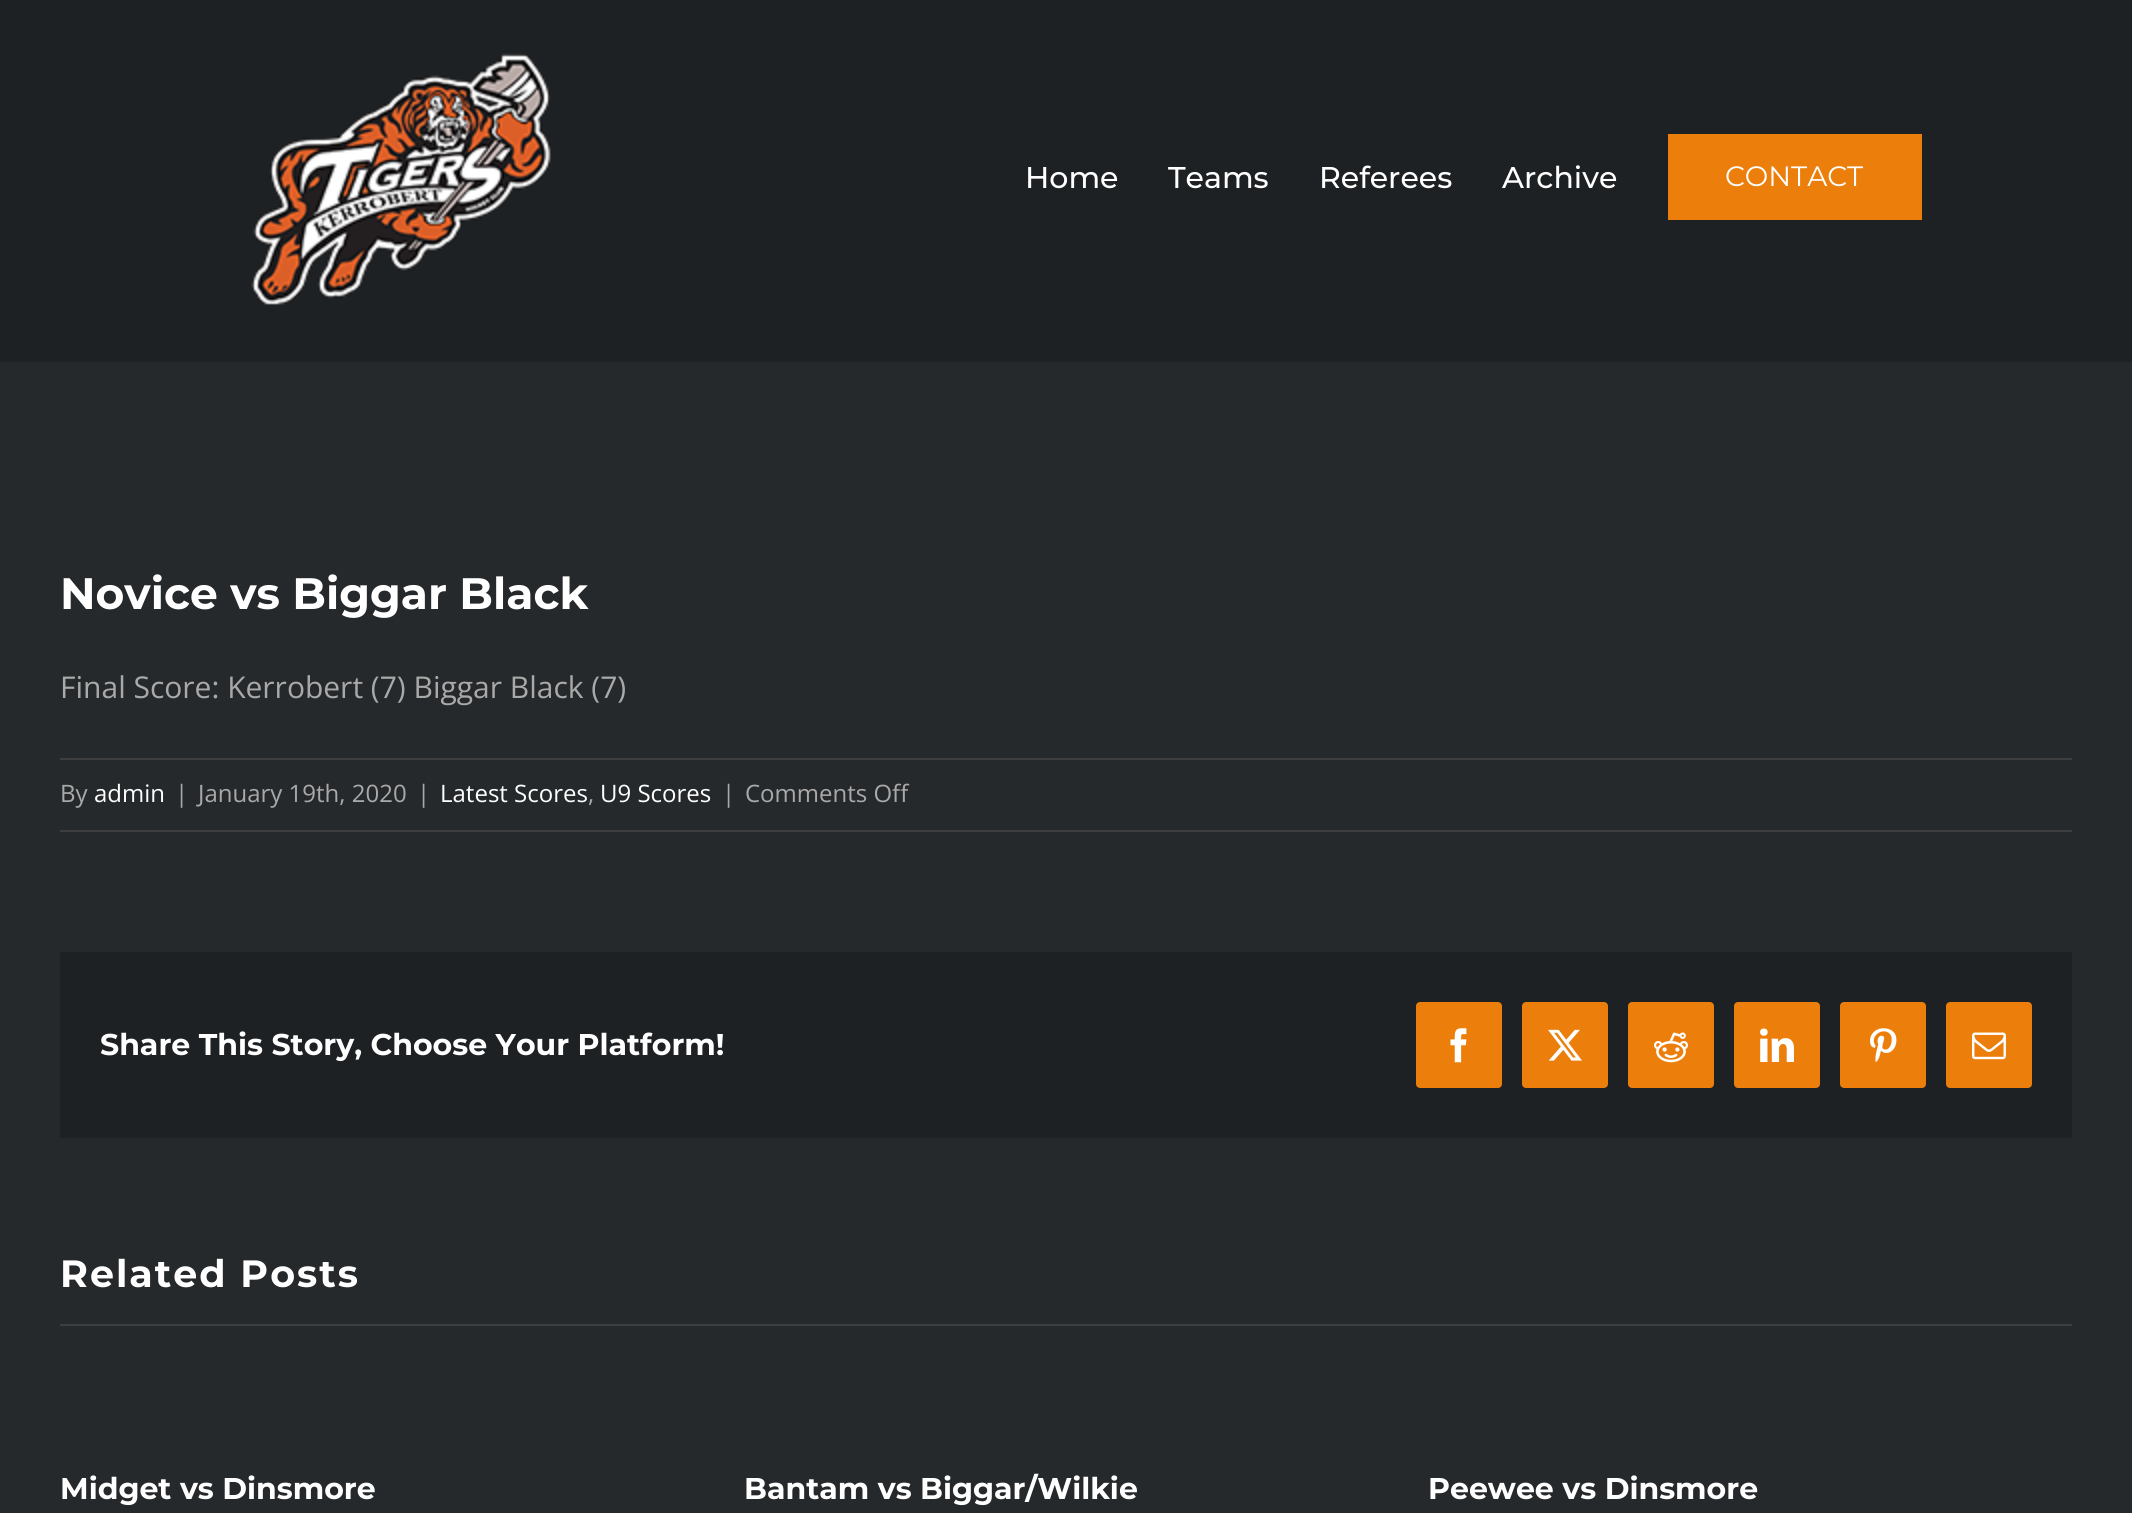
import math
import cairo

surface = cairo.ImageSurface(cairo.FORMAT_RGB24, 2132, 1513)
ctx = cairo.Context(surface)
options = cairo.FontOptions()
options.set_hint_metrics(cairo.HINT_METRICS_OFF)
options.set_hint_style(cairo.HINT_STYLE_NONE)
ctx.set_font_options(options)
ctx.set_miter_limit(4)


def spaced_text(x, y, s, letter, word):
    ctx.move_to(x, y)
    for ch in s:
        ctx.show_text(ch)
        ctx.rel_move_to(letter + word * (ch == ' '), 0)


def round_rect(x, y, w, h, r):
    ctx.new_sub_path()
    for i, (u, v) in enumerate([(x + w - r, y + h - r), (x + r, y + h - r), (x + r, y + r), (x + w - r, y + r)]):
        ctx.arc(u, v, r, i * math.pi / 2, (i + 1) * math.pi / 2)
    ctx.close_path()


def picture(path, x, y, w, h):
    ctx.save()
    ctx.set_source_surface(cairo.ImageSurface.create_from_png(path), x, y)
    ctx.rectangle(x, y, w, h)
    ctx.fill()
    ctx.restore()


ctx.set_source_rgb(0.145, 0.161, 0.169)
ctx.paint()
ctx.set_source_rgb(0.118, 0.129, 0.137)
ctx.rectangle(0, 0, 2132, 362)
ctx.fill()
picture("img1.png", 251, 53, 300, 252)
ctx.select_font_face("Montserrat Medium")
ctx.set_font_size(30)
ctx.set_source_rgb(1, 1, 1)
ctx.move_to(1025, 188)
ctx.show_text("Home")
ctx.move_to(1168, 188)
ctx.show_text("Teams")
ctx.move_to(1319, 188)
ctx.show_text("Referees")
ctx.move_to(1502, 188)
ctx.show_text("Archive")
ctx.set_source_rgb(0.922, 0.498, 0.047)
ctx.rectangle(1668, 134, 254, 86)
ctx.fill()
ctx.select_font_face("Montserrat")
ctx.set_font_size(28)
ctx.set_source_rgb(1, 1, 1)
ctx.move_to(1725, 186)
ctx.show_text("CONTACT")
ctx.select_font_face("Montserrat", cairo.FONT_SLANT_NORMAL, cairo.FONT_WEIGHT_BOLD)
ctx.set_font_size(44)
ctx.move_to(60, 609)
ctx.show_text("Novice vs Biggar Black")
ctx.select_font_face("Open Sans")
ctx.set_font_size(30)
ctx.set_source_rgb(0.667, 0.663, 0.663)
ctx.move_to(60, 698)
ctx.show_text("Final Score: Kerrobert (7) Biggar Black (7)")
ctx.set_source_rgb(0.243, 0.243, 0.243)
ctx.rectangle(60, 758, 2012, 2)
ctx.fill()
ctx.rectangle(60, 830, 2012, 2)
ctx.fill()
ctx.set_font_size(24)
ctx.set_source_rgb(0.667, 0.663, 0.663)
ctx.move_to(60, 802)
ctx.show_text("By")
ctx.set_source_rgb(1, 1, 1)
ctx.move_to(94, 802)
ctx.show_text("admin")
ctx.set_source_rgb(0.667, 0.663, 0.663)
ctx.move_to(175, 802)
ctx.show_text("|")
ctx.move_to(198, 802)
ctx.show_text("January 19th, 2020")
ctx.move_to(417, 802)
ctx.show_text("|")
ctx.set_source_rgb(1, 1, 1)
ctx.move_to(440, 802)
ctx.show_text("Latest Scores")
ctx.set_source_rgb(0.667, 0.663, 0.663)
ctx.move_to(588, 802)
ctx.show_text(",")
ctx.set_source_rgb(1, 1, 1)
ctx.move_to(600, 802)
ctx.show_text("U9 Scores")
ctx.set_source_rgb(0.667, 0.663, 0.663)
ctx.move_to(722, 802)
ctx.show_text("|")
ctx.move_to(745, 802)
ctx.show_text("Comments Off")
ctx.set_source_rgb(0.118, 0.129, 0.137)
ctx.rectangle(60, 952, 2012, 186)
ctx.fill()
ctx.select_font_face("Montserrat", cairo.FONT_SLANT_NORMAL, cairo.FONT_WEIGHT_BOLD)
ctx.set_font_size(30)
ctx.set_source_rgb(1, 1, 1)
ctx.move_to(100, 1055)
ctx.show_text("Share This Story, Choose Your Platform!")
ctx.set_source_rgb(0.922, 0.498, 0.047)
round_rect(1417, 1003, 84, 84, 3)
ctx.fill_preserve()
ctx.stroke()
picture("img2.png", 1450, 1028, 17, 35)
round_rect(1523, 1003, 84, 84, 3)
ctx.fill_preserve()
ctx.stroke()
picture("img3.png", 1548, 1029, 34, 32)
round_rect(1629, 1003, 84, 84, 3)
ctx.fill_preserve()
ctx.stroke()
picture("img4.png", 1654, 1032, 34, 31)
round_rect(1735, 1003, 84, 84, 3)
ctx.fill_preserve()
ctx.stroke()
picture("img5.png", 1760, 1028, 34, 34)
round_rect(1841, 1003, 84, 84, 3)
ctx.fill_preserve()
ctx.stroke()
picture("img6.png", 1870, 1028, 27, 35)
round_rect(1947, 1003, 84, 84, 3)
ctx.fill_preserve()
ctx.stroke()
picture("img7.png", 1972, 1032, 34, 28)
ctx.set_source_rgb(0.243, 0.243, 0.243)
ctx.rectangle(60, 1324, 2012, 2)
ctx.fill()
ctx.set_font_size(38)
ctx.set_source_rgb(1, 1, 1)
spaced_text(60, 1287, "Related Posts", 2, 0)
ctx.set_font_size(30)
ctx.move_to(60, 1499)
ctx.show_text("Midget vs Dinsmore")
ctx.move_to(744, 1499)
ctx.show_text("Bantam vs Biggar/Wilkie")
ctx.move_to(1428, 1499)
ctx.show_text("Peewee vs Dinsmore")
surface.write_to_png("page.png")
